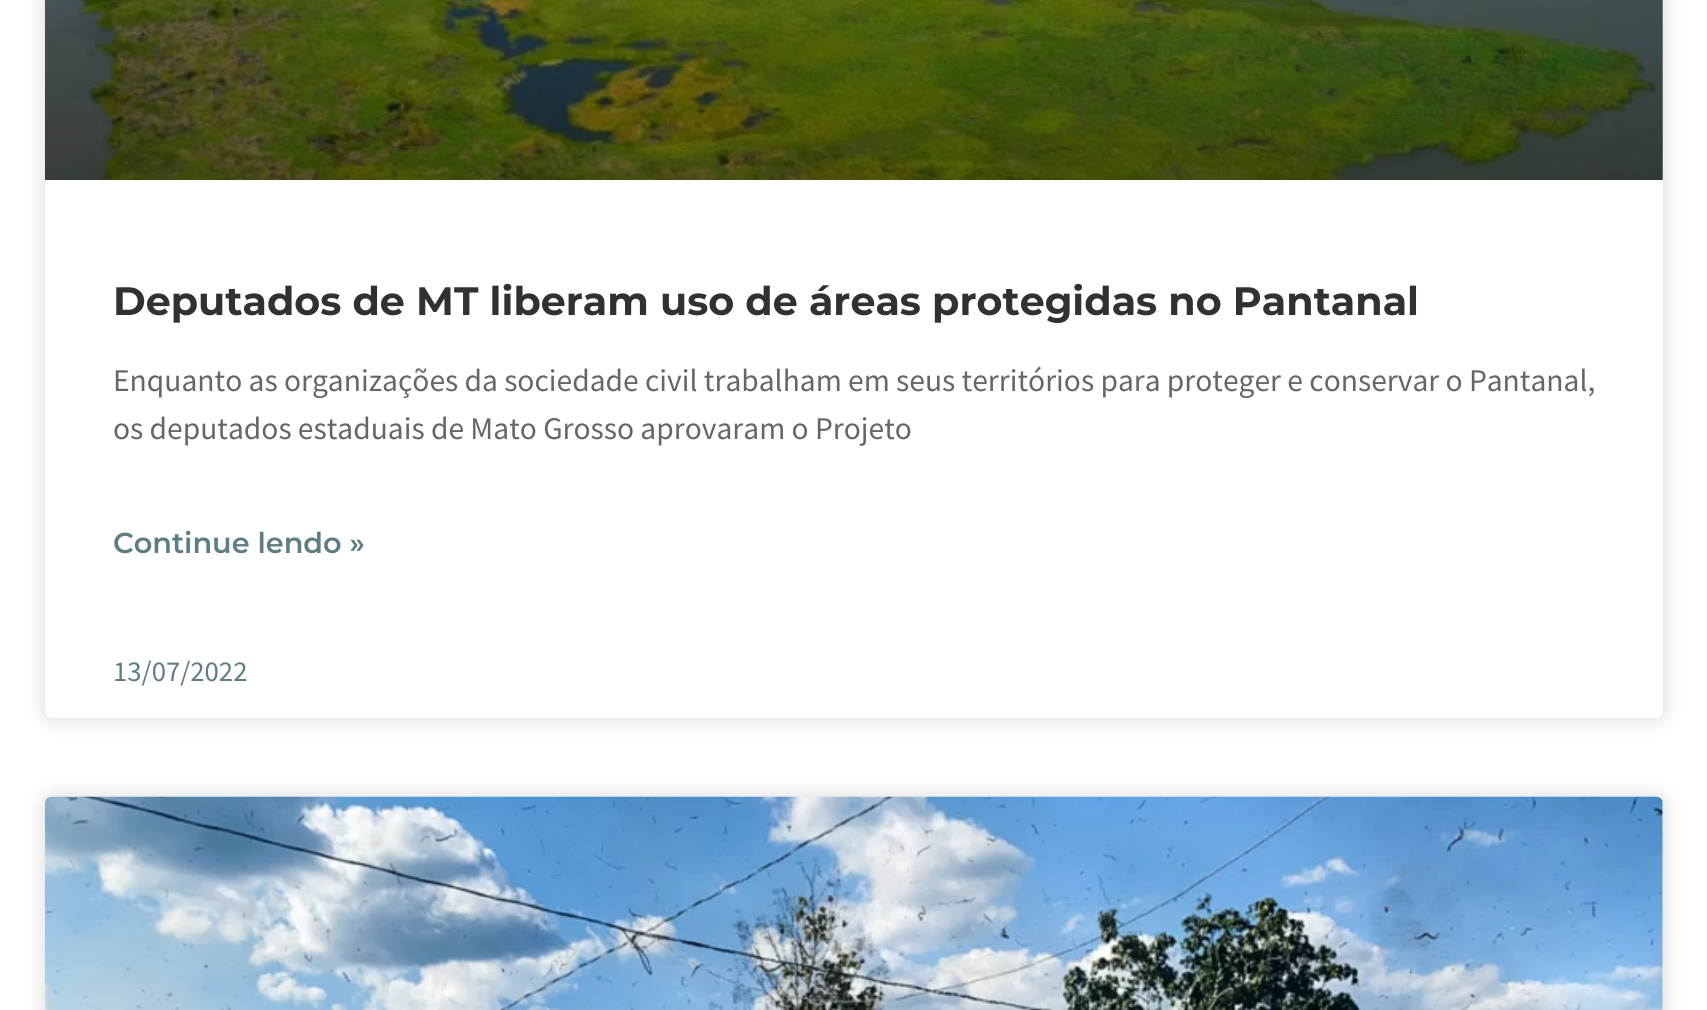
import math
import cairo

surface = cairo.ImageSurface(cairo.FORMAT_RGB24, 1707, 1010)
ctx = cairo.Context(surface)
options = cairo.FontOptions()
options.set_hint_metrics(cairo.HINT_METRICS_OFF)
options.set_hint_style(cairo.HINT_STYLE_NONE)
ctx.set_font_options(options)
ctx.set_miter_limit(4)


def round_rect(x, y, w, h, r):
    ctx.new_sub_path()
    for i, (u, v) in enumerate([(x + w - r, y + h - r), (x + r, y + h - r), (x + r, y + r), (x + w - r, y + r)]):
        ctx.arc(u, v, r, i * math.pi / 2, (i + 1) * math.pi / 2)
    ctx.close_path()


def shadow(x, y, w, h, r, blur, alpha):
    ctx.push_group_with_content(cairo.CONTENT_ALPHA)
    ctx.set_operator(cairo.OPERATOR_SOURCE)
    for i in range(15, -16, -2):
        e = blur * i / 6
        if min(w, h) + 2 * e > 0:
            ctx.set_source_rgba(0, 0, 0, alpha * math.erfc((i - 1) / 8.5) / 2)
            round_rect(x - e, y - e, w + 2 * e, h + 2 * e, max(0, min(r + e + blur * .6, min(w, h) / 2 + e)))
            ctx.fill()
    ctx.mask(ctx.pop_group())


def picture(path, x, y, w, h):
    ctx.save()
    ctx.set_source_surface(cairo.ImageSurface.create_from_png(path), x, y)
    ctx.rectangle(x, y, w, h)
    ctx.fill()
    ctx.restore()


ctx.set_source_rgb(1, 1, 1)
ctx.paint()
ctx.set_source_rgb(0, 0, 0)
shadow(45, -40, 1618, 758, 7, 11, 0.15)
ctx.set_source_rgb(1, 1, 1)
round_rect(45, -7, 1618, 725, 7)
ctx.fill()
picture("img1.png", 45, 0, 1618, 180)
gradient = cairo.LinearGradient(854, 180, 854, -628)
gradient.add_color_stop_rgba(0, 0, 0, 0, 0.35)
gradient.add_color_stop_rgba(0.75, 0, 0, 0, 0)
ctx.set_source(gradient)
ctx.rectangle(45, 0, 1618, 180)
ctx.fill()
ctx.select_font_face("Montserrat", cairo.FONT_SLANT_NORMAL, cairo.FONT_WEIGHT_BOLD)
ctx.set_font_size(39.6)
ctx.set_source_rgb(0.192, 0.192, 0.192)
ctx.move_to(113, 315)
ctx.show_text("Deputados de MT liberam uso de áreas protegidas no Pantanal")
ctx.select_font_face("Source Sans Pro")
ctx.set_font_size(31.5)
ctx.set_source_rgb(0.4, 0.4, 0.4)
ctx.move_to(113, 391)
ctx.show_text("Enquanto as organizações da sociedade civil trabalham em seus territórios para proteger e conservar o Pantanal,")
ctx.move_to(113, 439)
ctx.show_text("os deputados estaduais de Mato Grosso aprovaram o Projeto")
ctx.select_font_face("Montserrat SemiBold")
ctx.set_font_size(28.75)
ctx.set_source_rgb(0.369, 0.49, 0.514)
ctx.move_to(113, 553)
ctx.show_text("Continue lendo »")
ctx.select_font_face("Source Sans Pro")
ctx.move_to(113, 681)
ctx.show_text("13/07/2022")
ctx.set_source_rgb(0, 0, 0)
shadow(45, 797, 1618, 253, 7, 11, 0.15)
ctx.set_source_rgb(1, 1, 1)
round_rect(45, 797, 1618, 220, 7)
ctx.fill()
picture("img2.png", 45, 796, 1618, 214)
surface.write_to_png("page.png")
